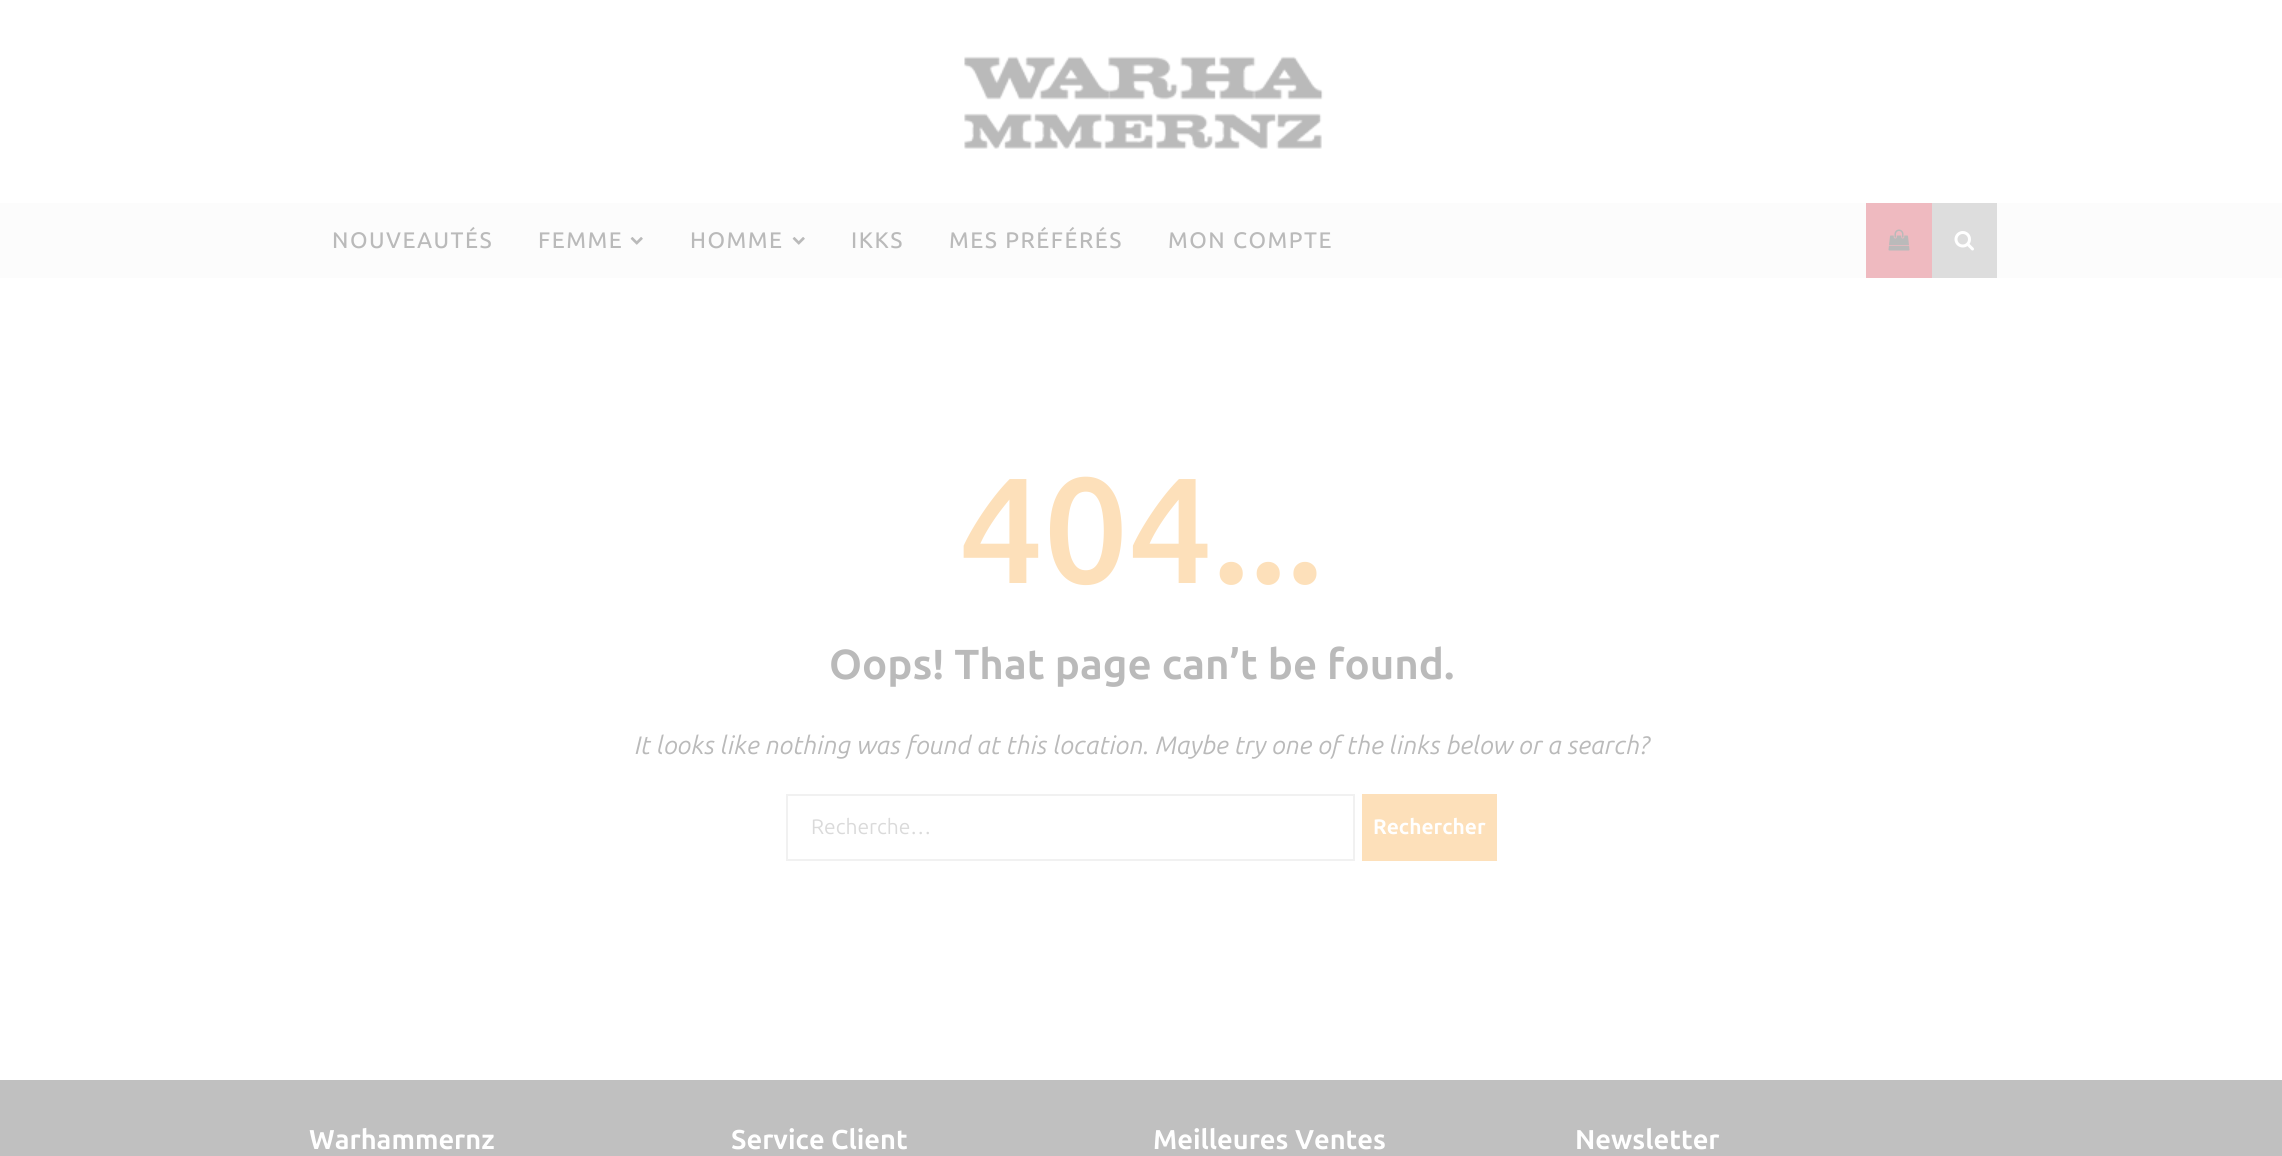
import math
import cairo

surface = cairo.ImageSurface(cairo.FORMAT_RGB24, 2282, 1156)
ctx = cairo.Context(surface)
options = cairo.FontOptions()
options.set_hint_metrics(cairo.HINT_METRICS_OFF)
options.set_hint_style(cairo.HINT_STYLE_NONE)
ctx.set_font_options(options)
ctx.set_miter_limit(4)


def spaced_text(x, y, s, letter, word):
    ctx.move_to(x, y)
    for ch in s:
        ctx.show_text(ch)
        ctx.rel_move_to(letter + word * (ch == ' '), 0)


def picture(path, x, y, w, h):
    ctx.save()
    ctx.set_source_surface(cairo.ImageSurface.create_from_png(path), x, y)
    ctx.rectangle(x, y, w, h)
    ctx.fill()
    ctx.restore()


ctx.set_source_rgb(1, 1, 1)
ctx.paint()
picture("img1.png", 964, 56, 360, 93)
ctx.set_source_rgb(0.988, 0.988, 0.988)
ctx.rectangle(0, 203, 2282, 75)
ctx.fill()
ctx.select_font_face("Ubuntu Medium")
ctx.set_font_size(22.5)
ctx.set_source_rgb(0.729, 0.729, 0.729)
spaced_text(332, 248, "NOUVEAUTÉS", 1.5, 0)
spaced_text(538, 248, "FEMME", 1.5, 0)
picture("img2.png", 630, 237, 13, 8)
spaced_text(690, 248, "HOMME", 1.5, 0)
picture("img2.png", 792, 237, 13, 8)
spaced_text(851, 248, "IKKS", 1.5, 0)
spaced_text(949, 248, "MES PRÉFÉRÉS", 1.5, 0)
spaced_text(1168, 248, "MON COMPTE", 1.5, 0)
ctx.set_source_rgb(0.937, 0.729, 0.753)
ctx.rectangle(1866, 203, 66, 75)
ctx.fill()
picture("img3.png", 1888, 229, 22, 22)
ctx.set_source_rgb(0.867, 0.867, 0.867)
ctx.rectangle(1932, 203, 65, 75)
ctx.fill()
picture("img4.png", 1954, 231, 20, 20)
ctx.select_font_face("Ubuntu SemiBold")
ctx.set_font_size(150)
ctx.set_source_rgb(0.992, 0.878, 0.729)
ctx.move_to(959, 583)
ctx.show_text("404...")
ctx.select_font_face("Ubuntu", cairo.FONT_SLANT_NORMAL, cairo.FONT_WEIGHT_BOLD)
ctx.set_font_size(42)
ctx.set_source_rgb(0.729, 0.729, 0.729)
ctx.move_to(829, 679)
ctx.show_text("Oops! That page can’t be found.")
ctx.select_font_face("Ubuntu", cairo.FONT_SLANT_ITALIC)
ctx.set_font_size(25.2)
ctx.move_to(635, 754)
ctx.show_text("It looks like nothing was found at this location. Maybe try one of the links below or a search?")
ctx.rectangle(787, 795, 567, 65)
ctx.set_source_rgb(0.945, 0.945, 0.945)
ctx.stroke()
ctx.select_font_face("Ubuntu")
ctx.set_font_size(21)
ctx.set_source_rgb(0.855, 0.855, 0.855)
ctx.move_to(811, 834)
ctx.show_text("Recherche…")
ctx.set_source_rgb(0.992, 0.878, 0.729)
ctx.rectangle(1362, 794, 135, 67)
ctx.fill()
ctx.select_font_face("Ubuntu", cairo.FONT_SLANT_NORMAL, cairo.FONT_WEIGHT_BOLD)
ctx.set_source_rgb(1, 1, 1)
ctx.move_to(1373, 834)
ctx.show_text("Rechercher")
ctx.set_source_rgb(0.753, 0.753, 0.753)
ctx.rectangle(0, 1080, 2282, 76)
ctx.fill()
ctx.set_font_size(27.25)
ctx.set_source_rgb(1, 1, 1)
ctx.move_to(309, 1149)
ctx.show_text("Warhammernz")
ctx.move_to(731, 1149)
ctx.show_text("Service Client")
ctx.move_to(1153, 1149)
ctx.show_text("Meilleures Ventes")
ctx.move_to(1575, 1149)
ctx.show_text("Newsletter")
surface.write_to_png("page.png")
